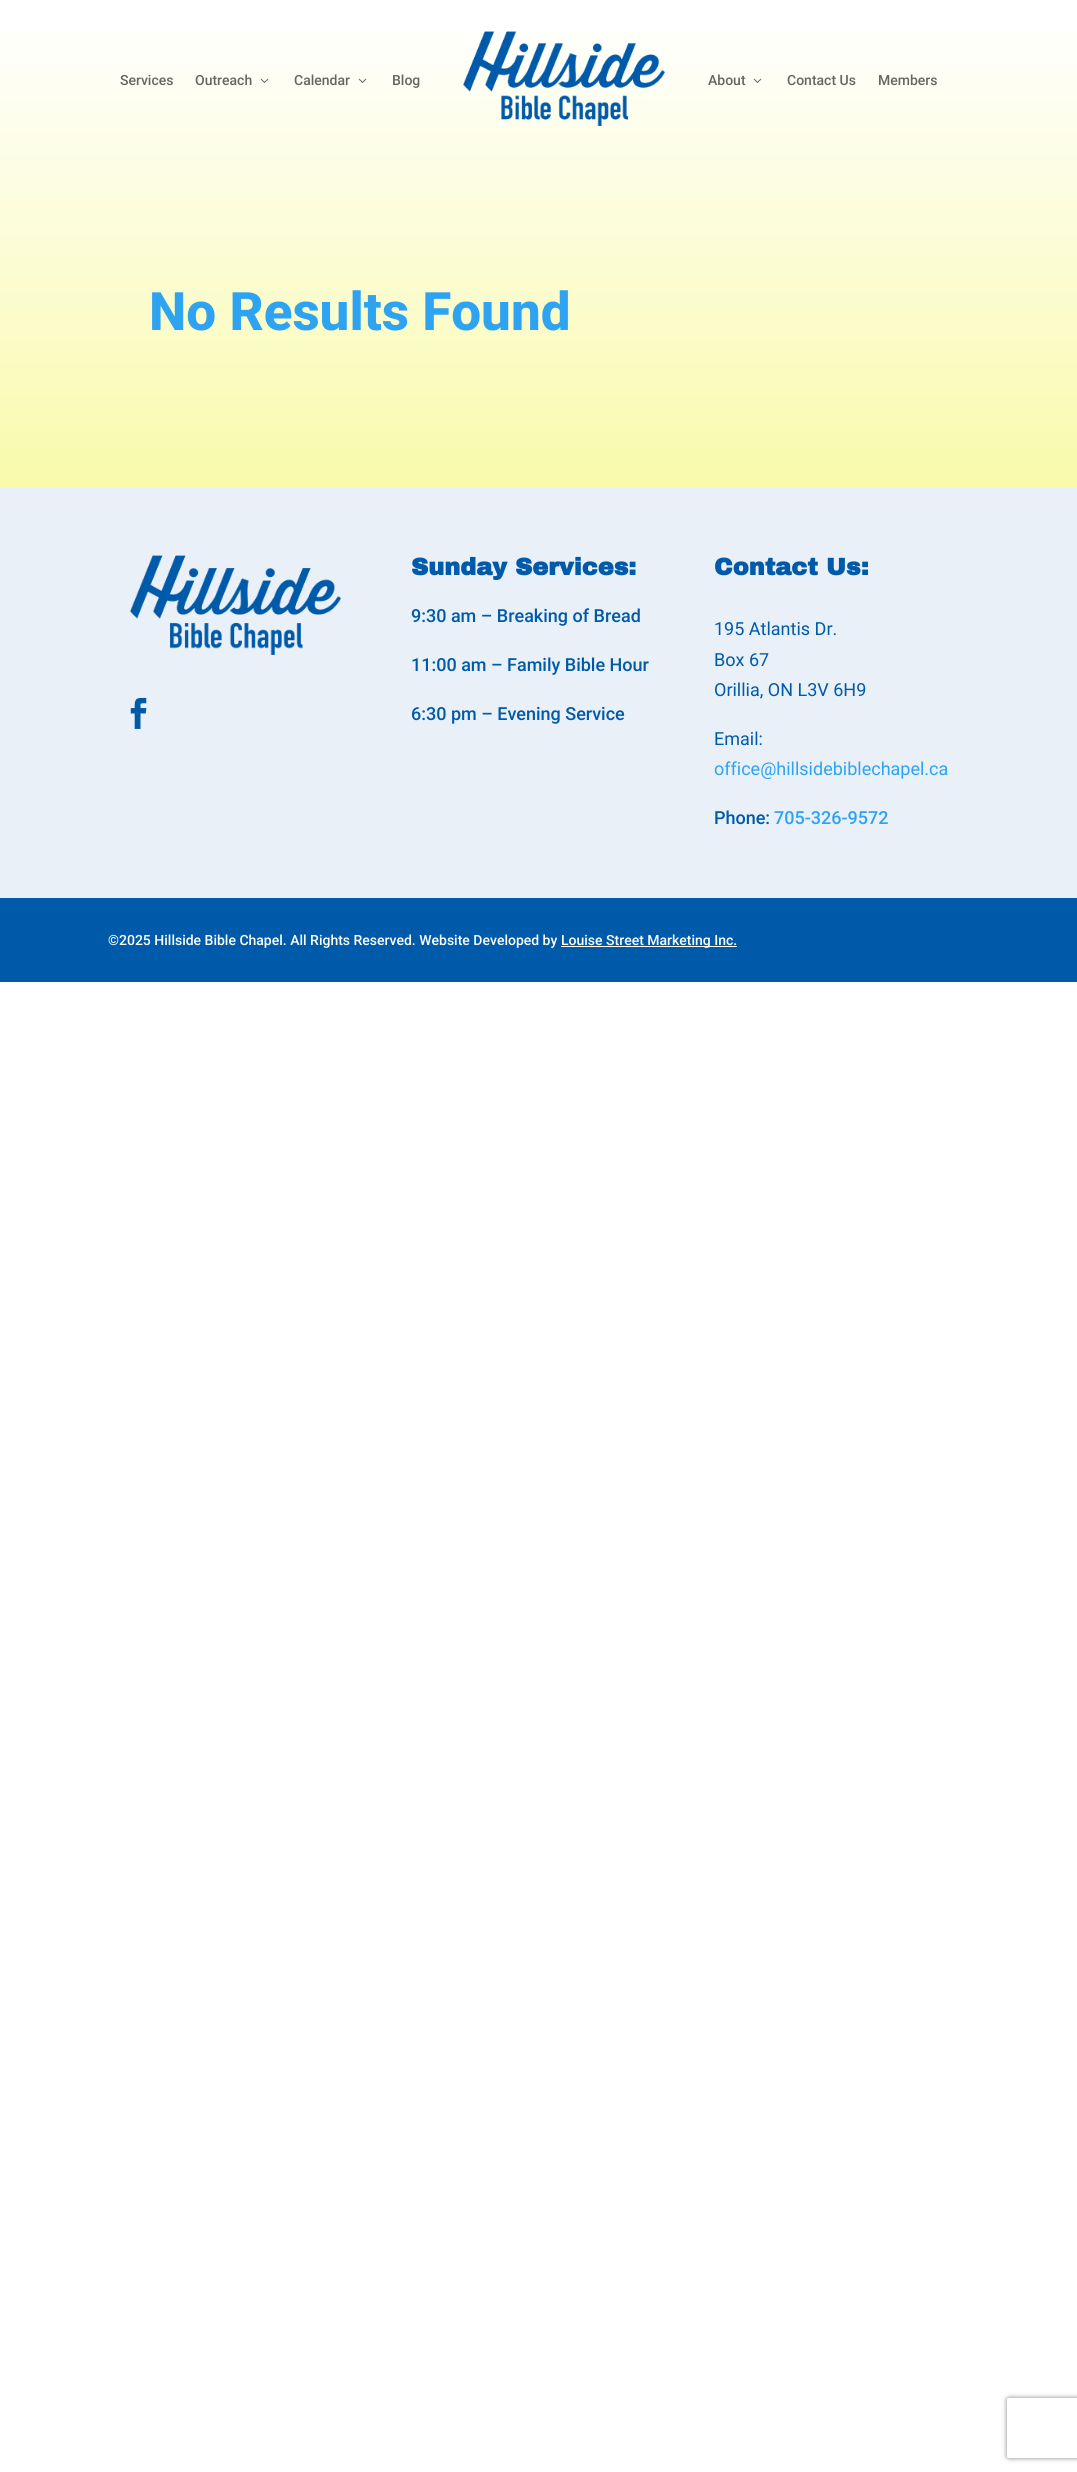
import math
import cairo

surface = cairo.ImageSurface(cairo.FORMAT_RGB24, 1077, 2472)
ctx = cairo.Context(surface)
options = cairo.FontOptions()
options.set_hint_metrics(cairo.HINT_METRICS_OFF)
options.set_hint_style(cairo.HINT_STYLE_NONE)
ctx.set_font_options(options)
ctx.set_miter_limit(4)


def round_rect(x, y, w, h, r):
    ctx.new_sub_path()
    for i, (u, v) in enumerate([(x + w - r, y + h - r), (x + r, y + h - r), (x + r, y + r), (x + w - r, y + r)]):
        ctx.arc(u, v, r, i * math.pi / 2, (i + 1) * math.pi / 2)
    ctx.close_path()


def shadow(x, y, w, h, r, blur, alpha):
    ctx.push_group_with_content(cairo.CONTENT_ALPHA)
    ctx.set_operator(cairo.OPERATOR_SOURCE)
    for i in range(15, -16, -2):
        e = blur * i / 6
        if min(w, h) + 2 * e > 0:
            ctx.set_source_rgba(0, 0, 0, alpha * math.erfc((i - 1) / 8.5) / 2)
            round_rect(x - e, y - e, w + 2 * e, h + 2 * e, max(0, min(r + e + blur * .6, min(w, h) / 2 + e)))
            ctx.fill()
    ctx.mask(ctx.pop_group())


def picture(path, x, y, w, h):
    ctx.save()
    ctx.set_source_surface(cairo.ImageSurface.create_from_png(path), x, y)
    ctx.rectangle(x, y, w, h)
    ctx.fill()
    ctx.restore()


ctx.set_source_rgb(1, 1, 1)
ctx.paint()
gradient = cairo.LinearGradient(539, 18, 539, 488)
gradient.add_color_stop_rgba(0, 1, 1, 1, 1)
gradient.add_color_stop_rgba(1, 0.976, 0.98, 0.671, 1)
ctx.set_source(gradient)
ctx.rectangle(0, 32, 1077, 456)
ctx.fill()
ctx.select_font_face("Roboto Medium")
ctx.set_font_size(14)
ctx.set_source_rgb(0.4, 0.4, 0.38)
ctx.move_to(120, 85)
ctx.show_text("Services")
ctx.move_to(195, 85)
ctx.show_text("Outreach")
picture("img1.png", 260, 78, 9, 5)
ctx.move_to(294, 85)
ctx.show_text("Calendar")
picture("img1.png", 358, 78, 9, 5)
ctx.move_to(392, 85)
ctx.show_text("Blog")
picture("img2.png", 463, 31, 202, 95)
ctx.move_to(708, 85)
ctx.show_text("About")
picture("img1.png", 753, 78, 9, 5)
ctx.move_to(787, 85)
ctx.show_text("Contact Us")
ctx.move_to(878, 85)
ctx.show_text("Members")
ctx.select_font_face("Roboto ExtraBold")
ctx.set_font_size(53)
ctx.set_source_rgb(0.18, 0.639, 0.949)
ctx.move_to(149, 330)
ctx.show_text("No Results Found")
ctx.set_source_rgb(0.914, 0.941, 0.965)
ctx.rectangle(0, 488, 1077, 410)
ctx.fill()
picture("img3.png", 130, 555, 211, 100)
picture("img4.png", 130, 697, 17, 32)
ctx.select_font_face("Archivo Black", cairo.FONT_SLANT_NORMAL, cairo.FONT_WEIGHT_BOLD)
ctx.set_font_size(24)
ctx.set_source_rgb(0, 0.353, 0.667)
ctx.move_to(411, 575)
ctx.show_text("Sunday Services:")
ctx.select_font_face("Roboto Medium")
ctx.set_font_size(18)
ctx.move_to(411, 622)
ctx.show_text("9:30 am – Breaking of Bread")
ctx.move_to(411, 671)
ctx.show_text("11:00 am – Family Bible Hour")
ctx.move_to(411, 720)
ctx.show_text("6:30 pm – Evening Service")
ctx.select_font_face("Archivo Black", cairo.FONT_SLANT_NORMAL, cairo.FONT_WEIGHT_BOLD)
ctx.set_font_size(24)
ctx.move_to(714, 575)
ctx.show_text("Contact Us:")
ctx.select_font_face("Roboto")
ctx.set_font_size(18)
ctx.move_to(714, 635)
ctx.show_text("195 Atlantis Dr.")
ctx.move_to(714, 666)
ctx.show_text("Box 67")
ctx.move_to(714, 696)
ctx.show_text("Orillia, ON L3V 6H9")
ctx.move_to(714, 745)
ctx.show_text("Email:")
ctx.set_source_rgb(0.18, 0.639, 0.949)
ctx.move_to(714, 775)
ctx.show_text("office@hillsidebiblechapel.ca")
ctx.select_font_face("Roboto Medium")
ctx.set_source_rgb(0, 0.353, 0.667)
ctx.move_to(714, 824)
ctx.show_text("Phone:")
ctx.set_source_rgb(0.18, 0.639, 0.949)
ctx.move_to(774, 824)
ctx.show_text("705-326-9572")
ctx.set_source_rgb(0, 0.353, 0.667)
ctx.rectangle(0, 898, 1077, 84)
ctx.fill()
ctx.set_font_size(14)
ctx.set_source_rgb(1, 1, 1)
ctx.move_to(108, 945)
ctx.show_text("©2025 Hillside Bible Chapel. All Rights Reserved. Website Developed by")
ctx.rectangle(561, 946, 176, 1)
ctx.fill()
ctx.move_to(561, 945)
ctx.show_text("Louise Street Marketing Inc.")
ctx.save()
ctx.set_fill_rule(cairo.FILL_RULE_EVEN_ODD)
ctx.new_path()
ctx.move_to(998, 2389)
ctx.line_to(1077, 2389)
ctx.line_to(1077, 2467)
ctx.line_to(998, 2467)
ctx.close_path()
ctx.move_to(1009, 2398)
ctx.line_to(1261, 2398)
ctx.curve_to(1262, 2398, 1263, 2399, 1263, 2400)
ctx.line_to(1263, 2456)
ctx.curve_to(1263, 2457, 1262, 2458, 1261, 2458)
ctx.line_to(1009, 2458)
ctx.curve_to(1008, 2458, 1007, 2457, 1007, 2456)
ctx.line_to(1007, 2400)
ctx.curve_to(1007, 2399, 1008, 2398, 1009, 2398)
ctx.close_path()
ctx.clip()
ctx.set_source_rgb(0.502, 0.502, 0.502)
shadow(1007, 2398, 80, 60, 2, 2.5, 1)
ctx.restore()
surface.write_to_png("page.png")
